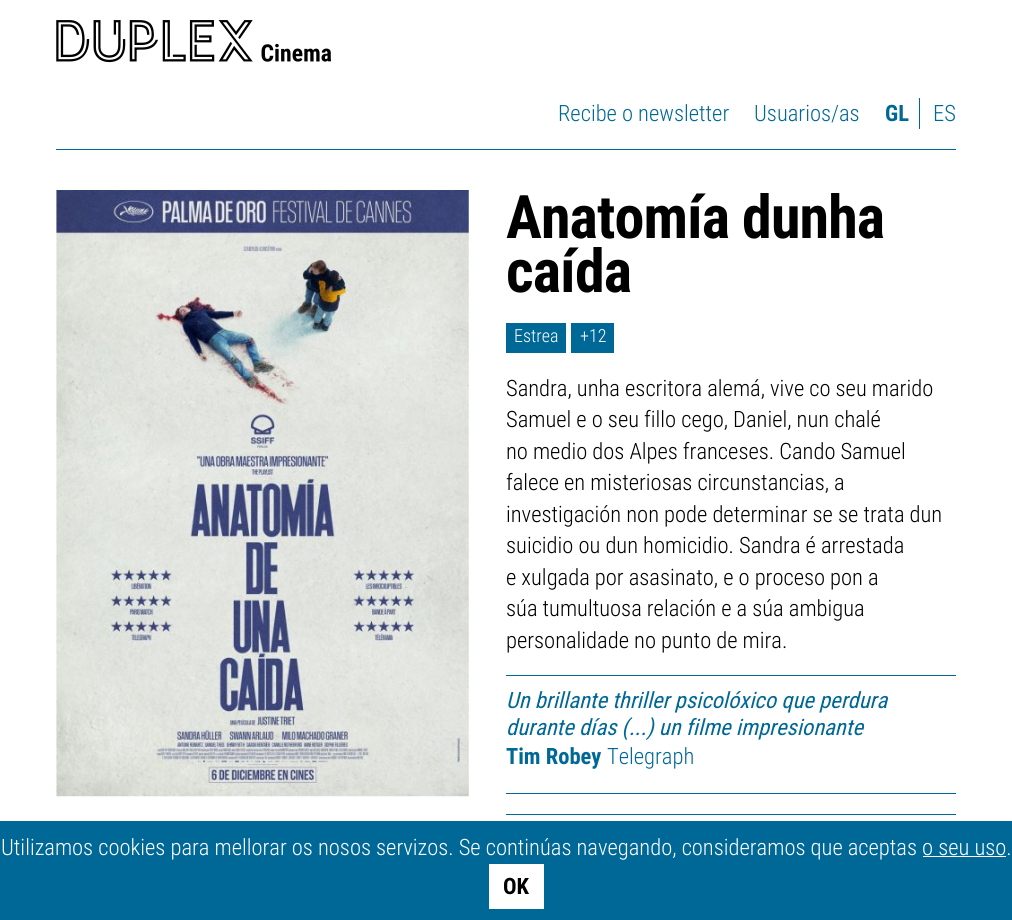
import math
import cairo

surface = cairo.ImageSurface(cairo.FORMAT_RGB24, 1012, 920)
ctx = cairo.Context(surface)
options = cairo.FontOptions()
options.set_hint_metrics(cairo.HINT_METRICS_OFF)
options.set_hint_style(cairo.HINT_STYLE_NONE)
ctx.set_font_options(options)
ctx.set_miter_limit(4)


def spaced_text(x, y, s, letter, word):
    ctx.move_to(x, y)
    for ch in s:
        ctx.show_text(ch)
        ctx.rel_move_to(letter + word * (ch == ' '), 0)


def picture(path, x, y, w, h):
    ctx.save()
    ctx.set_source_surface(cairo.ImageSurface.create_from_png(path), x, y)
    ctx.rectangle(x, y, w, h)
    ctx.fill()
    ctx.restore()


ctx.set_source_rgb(1, 1, 1)
ctx.paint()
ctx.set_source_rgb(0, 0.408, 0.592)
ctx.rectangle(56, 149, 900, 1)
ctx.fill()
picture("img1.png", 56, 20, 275, 43)
ctx.select_font_face("Roboto Condensed Light")
ctx.set_font_size(22.5)
ctx.move_to(558, 121)
ctx.show_text("Recibe o newsletter")
ctx.move_to(754, 121)
ctx.show_text("Usuarios/as")
ctx.rectangle(919, 98, 1, 31)
ctx.fill()
ctx.select_font_face("Roboto Condensed", cairo.FONT_SLANT_NORMAL, cairo.FONT_WEIGHT_BOLD)
ctx.move_to(885, 121)
ctx.show_text("GL")
ctx.select_font_face("Roboto Condensed Light")
ctx.move_to(933, 121)
ctx.show_text("ES")
picture("img2.png", 56, 190, 413, 607)
ctx.select_font_face("Roboto Condensed", cairo.FONT_SLANT_NORMAL, cairo.FONT_WEIGHT_BOLD)
ctx.set_font_size(60)
ctx.set_source_rgb(0, 0, 0)
spaced_text(506, 238, "Anatomía dunha", -0.9, 0)
spaced_text(506, 292, "caída", -0.9, 0)
ctx.set_source_rgb(0, 0.408, 0.592)
ctx.rectangle(506, 323, 60, 30)
ctx.fill()
ctx.select_font_face("Roboto Condensed Light")
ctx.set_font_size(18)
ctx.set_source_rgb(1, 1, 1)
ctx.move_to(514, 342)
ctx.show_text("Estrea")
ctx.set_source_rgb(0, 0.408, 0.592)
ctx.rectangle(571, 323, 43, 30)
ctx.fill()
ctx.set_source_rgb(1, 1, 1)
ctx.move_to(580, 342)
ctx.show_text("+12")
ctx.set_font_size(22.5)
ctx.set_source_rgb(0, 0, 0)
ctx.move_to(506, 396)
ctx.show_text("Sandra, unha escritora alemá, vive co seu marido")
ctx.move_to(506, 427)
ctx.show_text("Samuel e o seu fillo cego, Daniel, nun chalé")
ctx.move_to(506, 459)
ctx.show_text("no medio dos Alpes franceses. Cando Samuel")
ctx.move_to(506, 490)
ctx.show_text("falece en misteriosas circunstancias, a")
ctx.move_to(506, 522)
ctx.show_text("investigación non pode determinar se se trata dun")
ctx.move_to(506, 553)
ctx.show_text("suicidio ou dun homicidio. Sandra é arrestada")
ctx.move_to(506, 585)
ctx.show_text("e xulgada por asasinato, e o proceso pon a")
ctx.move_to(506, 616)
ctx.show_text("súa tumultuosa relación e a súa ambigua")
ctx.move_to(506, 648)
ctx.show_text("personalidade no punto de mira.")
ctx.set_source_rgb(0, 0.408, 0.592)
ctx.rectangle(506, 675, 450, 1)
ctx.fill()
ctx.rectangle(506, 793, 450, 1)
ctx.fill()
ctx.select_font_face("Roboto Condensed", cairo.FONT_SLANT_ITALIC)
ctx.move_to(506, 708)
ctx.show_text("Un brillante thriller psicolóxico que perdura")
ctx.move_to(506, 735)
ctx.show_text("durante días (...) un filme impresionante")
ctx.select_font_face("Roboto Condensed", cairo.FONT_SLANT_NORMAL, cairo.FONT_WEIGHT_BOLD)
ctx.move_to(506, 764)
ctx.show_text("Tim Robey")
ctx.select_font_face("Roboto Condensed Light")
ctx.move_to(607, 764)
ctx.show_text("Telegraph")
ctx.rectangle(506, 814, 450, 1)
ctx.fill()
ctx.rectangle(0, 821, 1012, 99)
ctx.fill()
ctx.set_source_rgb(1, 1, 1)
ctx.move_to(1, 855)
ctx.show_text("Utilizamos cookies para mellorar os nosos servizos. Se continúas navegando, consideramos que aceptas o seu uso.")
ctx.rectangle(923, 856, 83, 1)
ctx.fill()
ctx.rectangle(489, 864, 55, 45)
ctx.fill()
ctx.select_font_face("Roboto Condensed", cairo.FONT_SLANT_NORMAL, cairo.FONT_WEIGHT_BOLD)
ctx.set_source_rgb(0, 0, 0)
ctx.move_to(503, 894)
ctx.show_text("OK")
surface.write_to_png("page.png")
